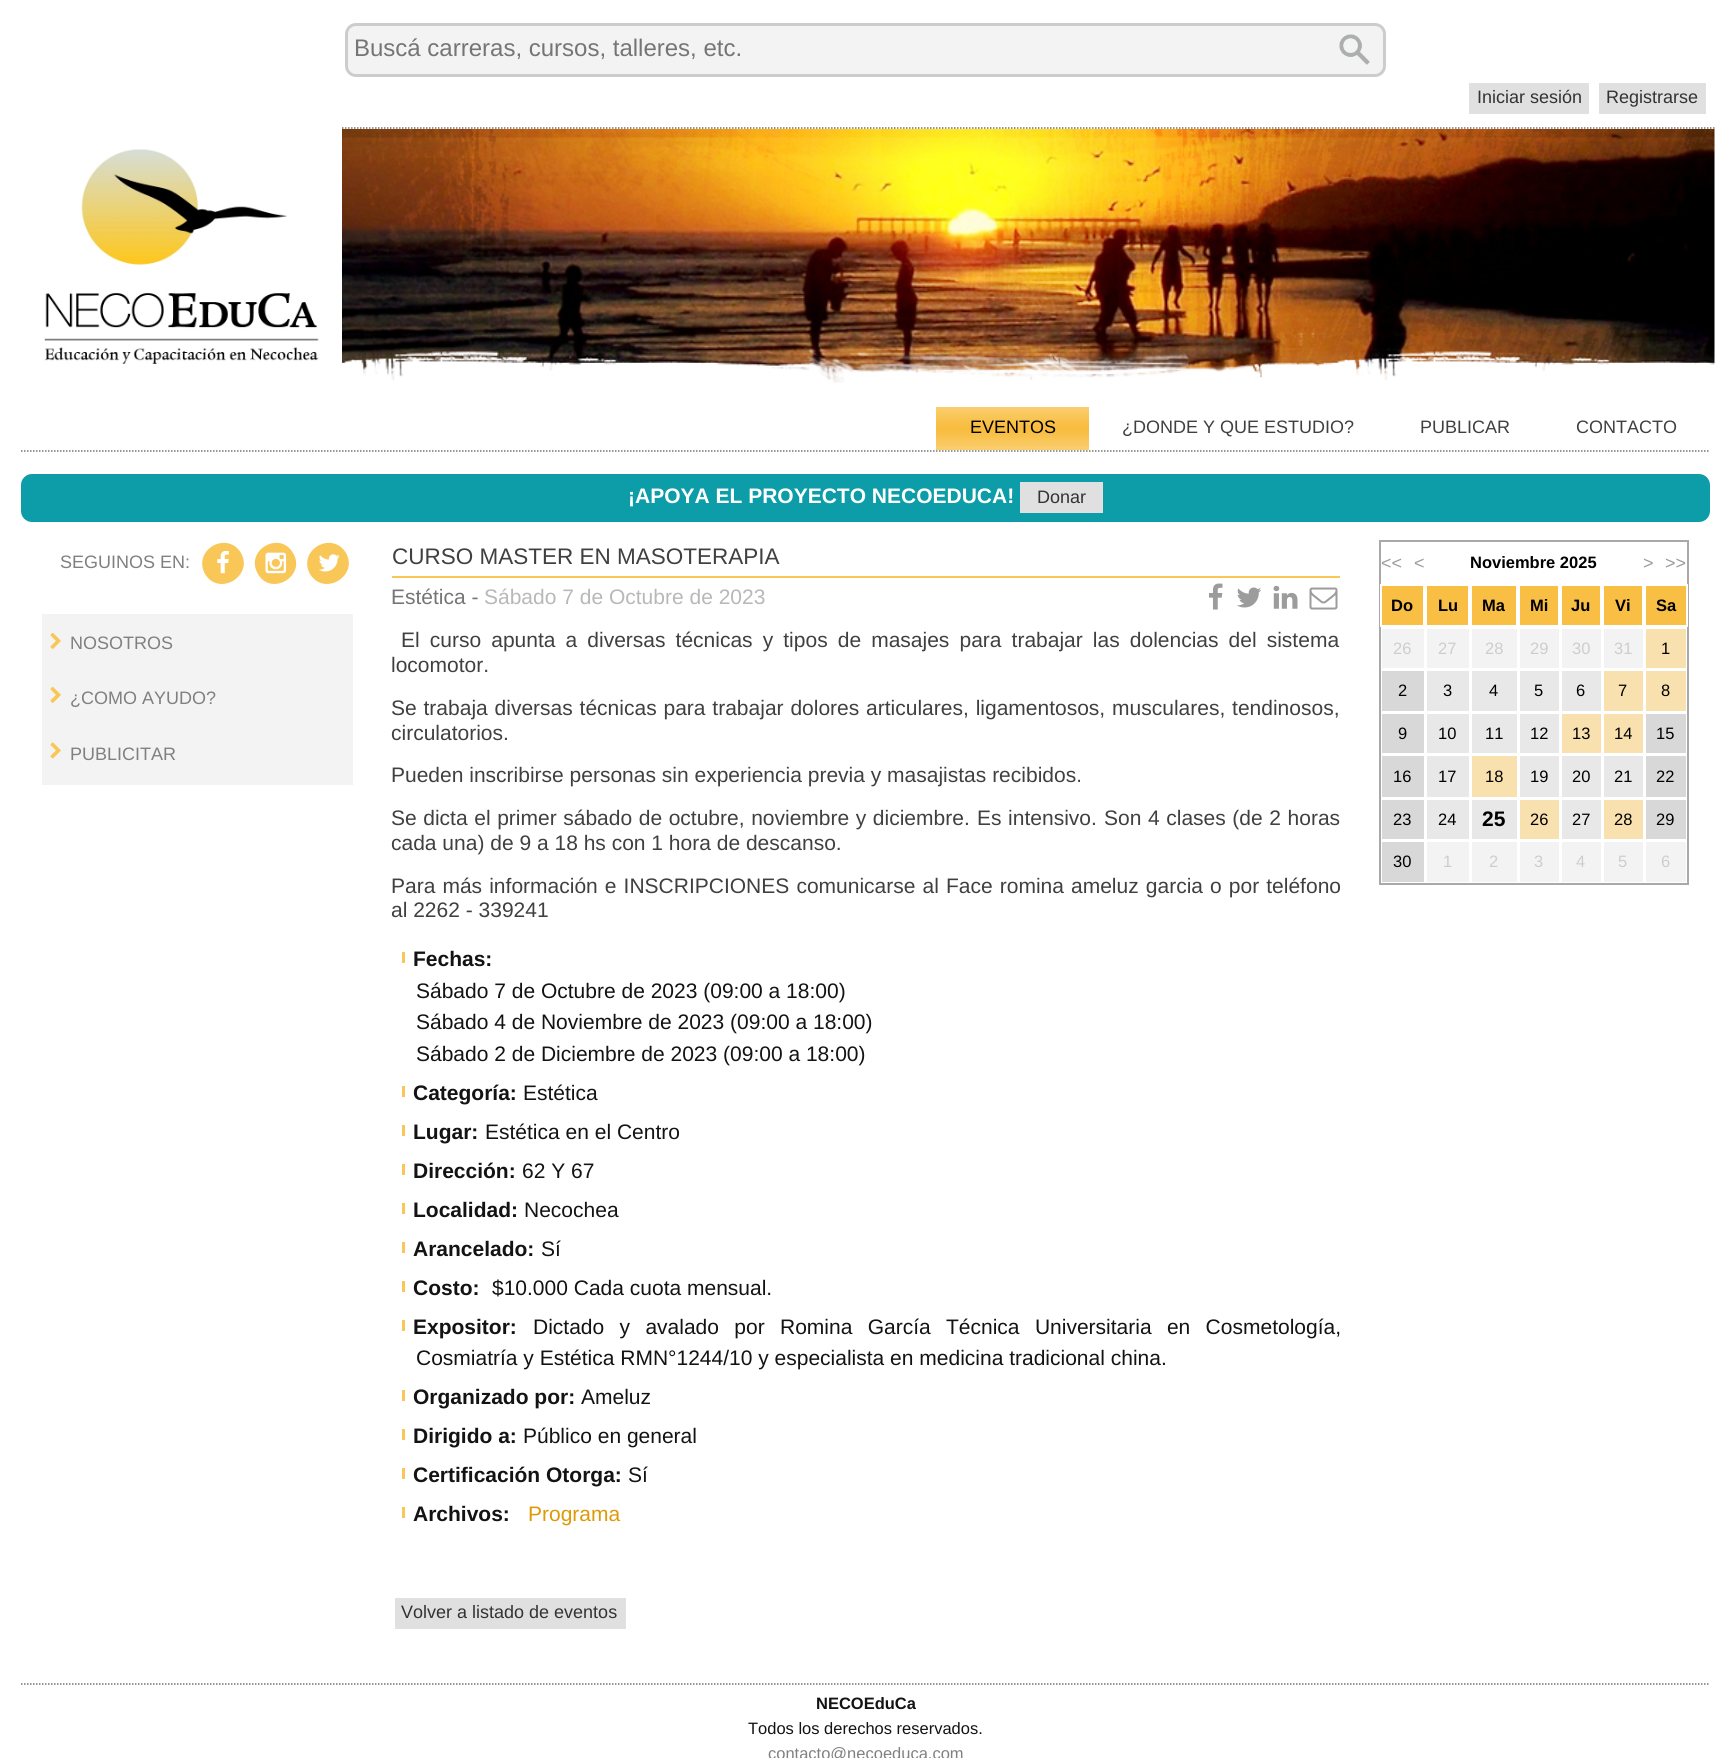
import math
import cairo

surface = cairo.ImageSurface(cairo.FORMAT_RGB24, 1731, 1758)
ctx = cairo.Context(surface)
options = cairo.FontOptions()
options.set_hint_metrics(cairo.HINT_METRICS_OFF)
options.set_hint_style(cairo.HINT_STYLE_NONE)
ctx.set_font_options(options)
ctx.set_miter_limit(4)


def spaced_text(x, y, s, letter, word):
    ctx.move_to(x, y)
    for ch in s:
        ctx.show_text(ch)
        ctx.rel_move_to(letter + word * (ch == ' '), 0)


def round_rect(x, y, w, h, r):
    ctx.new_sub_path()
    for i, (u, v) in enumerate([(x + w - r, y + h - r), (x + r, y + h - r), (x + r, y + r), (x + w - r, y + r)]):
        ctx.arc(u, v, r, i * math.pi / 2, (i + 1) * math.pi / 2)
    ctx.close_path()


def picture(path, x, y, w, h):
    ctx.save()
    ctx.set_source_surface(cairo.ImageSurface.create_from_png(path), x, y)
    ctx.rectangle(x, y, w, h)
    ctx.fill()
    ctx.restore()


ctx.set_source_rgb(1, 1, 1)
ctx.paint()
ctx.set_source_rgb(0.953, 0.953, 0.953)
round_rect(346.5, 24.5, 1038, 51, 9.5)
ctx.fill_preserve()
ctx.set_source_rgb(0.8, 0.8, 0.8)
ctx.set_line_width(3)
ctx.stroke()
ctx.select_font_face("Liberation Sans")
ctx.set_font_size(24)
ctx.set_source_rgb(0.459, 0.459, 0.459)
ctx.move_to(354, 56)
ctx.show_text("Buscá carreras, cursos, talleres, etc.")
picture("img1.png", 1339, 34, 31, 31)
ctx.set_source_rgb(0.878, 0.878, 0.878)
ctx.rectangle(1469, 83, 120, 31)
ctx.fill()
ctx.set_font_size(18)
ctx.set_source_rgb(0.2, 0.2, 0.2)
ctx.move_to(1477, 103)
ctx.show_text("Iniciar sesión")
ctx.set_source_rgb(0.878, 0.878, 0.878)
ctx.rectangle(1599, 83, 107, 31)
ctx.fill()
ctx.set_source_rgb(0.2, 0.2, 0.2)
ctx.move_to(1606, 103)
ctx.show_text("Registrarse")
picture("img2.png", 44, 149, 275, 215)
ctx.new_path()
ctx.move_to(342, 128)
ctx.line_to(1714.5, 128)
ctx.set_source_rgb(0.451, 0.451, 0.451)
ctx.set_line_width(1.5)
ctx.set_dash([1.5, 1.5])
ctx.stroke()
picture("img3.png", 342, 129, 1373, 254)
ctx.new_path()
ctx.move_to(21, 451)
ctx.line_to(1710, 451)
ctx.stroke()
gradient = cairo.LinearGradient(1013, 407, 1013, 450)
gradient.add_color_stop_rgba(0, 0.98, 0.808, 0.439, 1)
gradient.add_color_stop_rgba(0.4, 0.973, 0.749, 0.267, 1)
gradient.add_color_stop_rgba(0.5, 0.973, 0.741, 0.247, 1)
gradient.add_color_stop_rgba(0.6, 0.973, 0.749, 0.267, 1)
gradient.add_color_stop_rgba(1, 0.98, 0.808, 0.439, 1)
ctx.set_source(gradient)
ctx.rectangle(936, 407, 153, 43)
ctx.fill()
ctx.set_source_rgb(0, 0, 0)
ctx.move_to(970, 433)
ctx.show_text("EVENTOS")
ctx.set_source_rgb(0.251, 0.251, 0.251)
ctx.move_to(1122, 433)
ctx.show_text("¿DONDE Y QUE ESTUDIO?")
ctx.move_to(1420, 433)
ctx.show_text("PUBLICAR")
ctx.move_to(1576, 433)
ctx.show_text("CONTACTO")
ctx.set_source_rgb(0.047, 0.616, 0.663)
round_rect(21, 474, 1689, 48, 11)
ctx.fill()
ctx.select_font_face("Liberation Sans", cairo.FONT_SLANT_NORMAL, cairo.FONT_WEIGHT_BOLD)
ctx.set_font_size(21)
ctx.set_source_rgb(1, 1, 1)
ctx.move_to(628, 503)
ctx.show_text("¡APOYA EL PROYECTO NECOEDUCA!")
ctx.set_source_rgb(0.878, 0.878, 0.878)
ctx.rectangle(1020, 482, 83, 31)
ctx.fill()
ctx.select_font_face("Liberation Sans")
ctx.set_font_size(18)
ctx.set_source_rgb(0.2, 0.2, 0.2)
ctx.move_to(1037, 503)
ctx.show_text("Donar")
ctx.set_source_rgb(0.502, 0.502, 0.502)
ctx.move_to(60, 568)
ctx.show_text("SEGUINOS EN:")
ctx.set_source_rgb(0.976, 0.776, 0.345)
ctx.new_path()
ctx.move_to(241, 553)
ctx.curve_to(254, 576, 219, 597, 205, 574)
ctx.curve_to(192, 550, 227, 530, 241, 553)
ctx.close_path()
ctx.fill()
picture("img4.png", 217, 550, 12, 24)
ctx.new_path()
ctx.move_to(293, 553)
ctx.curve_to(307, 576, 271, 597, 258, 574)
ctx.curve_to(244, 550, 280, 530, 293, 553)
ctx.close_path()
ctx.fill()
picture("img5.png", 265, 552, 22, 22)
ctx.new_path()
ctx.move_to(346, 553)
ctx.curve_to(359, 576, 324, 597, 310, 574)
ctx.curve_to(297, 550, 332, 530, 346, 553)
ctx.close_path()
ctx.fill()
picture("img6.png", 318, 554, 22, 18)
ctx.set_source_rgb(0.953, 0.953, 0.953)
ctx.rectangle(42, 614, 311, 171)
ctx.fill()
picture("img7.png", 50, 632, 11, 17)
ctx.set_source_rgb(0.502, 0.502, 0.502)
ctx.move_to(70, 649)
ctx.show_text("NOSOTROS")
picture("img7.png", 50, 686, 11, 17)
ctx.move_to(70, 704)
ctx.show_text("¿COMO AYUDO?")
picture("img8.png", 50, 742, 11, 17)
ctx.move_to(70, 760)
ctx.show_text("PUBLICITAR")
ctx.set_source_rgb(0.976, 0.776, 0.345)
ctx.rectangle(392, 576, 948, 2)
ctx.fill()
ctx.set_font_size(22.5)
ctx.set_source_rgb(0.251, 0.251, 0.251)
ctx.move_to(392, 564)
ctx.show_text("CURSO MASTER EN MASOTERAPIA")
picture("img9.png", 1209, 583, 14, 27)
picture("img10.png", 1237, 587, 24, 21)
picture("img11.png", 1273, 585, 25, 24)
picture("img12.png", 1309, 587, 29, 23)
ctx.set_font_size(21)
ctx.set_source_rgb(0.459, 0.459, 0.459)
ctx.move_to(391, 604)
ctx.show_text("Estética -")
ctx.set_source_rgb(0.722, 0.722, 0.722)
ctx.move_to(484, 604)
ctx.show_text("Sábado 7 de Octubre de 2023")
ctx.set_source_rgb(0.251, 0.251, 0.251)
spaced_text(401, 647, "El curso apunta a diversas técnicas y tipos de masajes para trabajar las dolencias del sistema", 0, 4.25)
ctx.move_to(391, 672)
ctx.show_text("locomotor.")
spaced_text(391, 715, "Se trabaja diversas técnicas para trabajar dolores articulares, ligamentosos, musculares, tendinosos,", 0, 1)
ctx.move_to(391, 740)
ctx.show_text("circulatorios.")
ctx.move_to(391, 782)
ctx.show_text("Pueden inscribirse personas sin experiencia previa y masajistas recibidos.")
spaced_text(391, 825, "Se dicta el primer sábado de octubre, noviembre y diciembre.", 0, 0.75)
spaced_text(977, 825, "Es intensivo.", 0, 0.75)
spaced_text(1104, 825, "Son 4 clases (de 2 horas", 0, 0.75)
ctx.move_to(391, 850)
ctx.show_text("cada una) de 9 a 18 hs con 1 hora de descanso.")
spaced_text(391, 893, "Para más información e INSCRIPCIONES comunicarse al Face romina ameluz garcia o por teléfono", 0, 1.25)
ctx.move_to(391, 917)
ctx.show_text("al 2262 - 339241")
ctx.set_source_rgb(0.976, 0.776, 0.345)
ctx.rectangle(402, 952, 3, 11)
ctx.fill()
ctx.select_font_face("Liberation Sans", cairo.FONT_SLANT_NORMAL, cairo.FONT_WEIGHT_BOLD)
ctx.set_source_rgb(0.078, 0.078, 0.078)
ctx.move_to(413, 966)
ctx.show_text("Fechas:")
ctx.select_font_face("Liberation Sans")
ctx.move_to(416, 998)
ctx.show_text("Sábado 7 de Octubre de 2023 (09:00 a 18:00)")
ctx.move_to(416, 1029)
ctx.show_text("Sábado 4 de Noviembre de 2023 (09:00 a 18:00)")
ctx.move_to(416, 1061)
ctx.show_text("Sábado 2 de Diciembre de 2023 (09:00 a 18:00)")
ctx.set_source_rgb(0.976, 0.776, 0.345)
ctx.rectangle(402, 1086, 3, 11)
ctx.fill()
ctx.select_font_face("Liberation Sans", cairo.FONT_SLANT_NORMAL, cairo.FONT_WEIGHT_BOLD)
ctx.set_source_rgb(0.078, 0.078, 0.078)
ctx.move_to(413, 1100)
ctx.show_text("Categoría:")
ctx.select_font_face("Liberation Sans")
ctx.move_to(523, 1100)
ctx.show_text("Estética")
ctx.set_source_rgb(0.976, 0.776, 0.345)
ctx.rectangle(402, 1125, 3, 11)
ctx.fill()
ctx.select_font_face("Liberation Sans", cairo.FONT_SLANT_NORMAL, cairo.FONT_WEIGHT_BOLD)
ctx.set_source_rgb(0.078, 0.078, 0.078)
ctx.move_to(413, 1139)
ctx.show_text("Lugar:")
ctx.select_font_face("Liberation Sans")
ctx.move_to(485, 1139)
ctx.show_text("Estética en el Centro")
ctx.set_source_rgb(0.976, 0.776, 0.345)
ctx.rectangle(402, 1164, 3, 11)
ctx.fill()
ctx.select_font_face("Liberation Sans", cairo.FONT_SLANT_NORMAL, cairo.FONT_WEIGHT_BOLD)
ctx.set_source_rgb(0.078, 0.078, 0.078)
ctx.move_to(413, 1178)
ctx.show_text("Dirección:")
ctx.select_font_face("Liberation Sans")
ctx.move_to(522, 1178)
ctx.show_text("62 Y 67")
ctx.set_source_rgb(0.976, 0.776, 0.345)
ctx.rectangle(402, 1203, 3, 11)
ctx.fill()
ctx.select_font_face("Liberation Sans", cairo.FONT_SLANT_NORMAL, cairo.FONT_WEIGHT_BOLD)
ctx.set_source_rgb(0.078, 0.078, 0.078)
ctx.move_to(413, 1217)
ctx.show_text("Localidad:")
ctx.select_font_face("Liberation Sans")
ctx.move_to(524, 1217)
ctx.show_text("Necochea")
ctx.set_source_rgb(0.976, 0.776, 0.345)
ctx.rectangle(402, 1242, 3, 11)
ctx.fill()
ctx.select_font_face("Liberation Sans", cairo.FONT_SLANT_NORMAL, cairo.FONT_WEIGHT_BOLD)
ctx.set_source_rgb(0.078, 0.078, 0.078)
ctx.move_to(413, 1256)
ctx.show_text("Arancelado:")
ctx.select_font_face("Liberation Sans")
ctx.move_to(541, 1256)
ctx.show_text("Sí")
ctx.set_source_rgb(0.976, 0.776, 0.345)
ctx.rectangle(402, 1281, 3, 11)
ctx.fill()
ctx.select_font_face("Liberation Sans", cairo.FONT_SLANT_NORMAL, cairo.FONT_WEIGHT_BOLD)
ctx.set_source_rgb(0.078, 0.078, 0.078)
ctx.move_to(413, 1295)
ctx.show_text("Costo:")
ctx.select_font_face("Liberation Sans")
ctx.move_to(492, 1295)
ctx.show_text("$10.000 Cada cuota mensual.")
ctx.set_source_rgb(0.976, 0.776, 0.345)
ctx.rectangle(402, 1320, 3, 11)
ctx.fill()
ctx.select_font_face("Liberation Sans", cairo.FONT_SLANT_NORMAL, cairo.FONT_WEIGHT_BOLD)
ctx.set_source_rgb(0.078, 0.078, 0.078)
ctx.move_to(413, 1334)
ctx.show_text("Expositor:")
ctx.select_font_face("Liberation Sans")
spaced_text(533, 1334, "Dictado y avalado por Romina García Técnica Universitaria en Cosmetología,", 0, 9.5)
ctx.move_to(416, 1365)
ctx.show_text("Cosmiatría y Estética RMN°1244/10 y especialista en medicina tradicional china.")
ctx.set_source_rgb(0.976, 0.776, 0.345)
ctx.rectangle(402, 1390, 3, 11)
ctx.fill()
ctx.select_font_face("Liberation Sans", cairo.FONT_SLANT_NORMAL, cairo.FONT_WEIGHT_BOLD)
ctx.set_source_rgb(0.078, 0.078, 0.078)
ctx.move_to(413, 1404)
ctx.show_text("Organizado por:")
ctx.select_font_face("Liberation Sans")
ctx.move_to(581, 1404)
ctx.show_text("Ameluz")
ctx.set_source_rgb(0.976, 0.776, 0.345)
ctx.rectangle(402, 1429, 3, 11)
ctx.fill()
ctx.select_font_face("Liberation Sans", cairo.FONT_SLANT_NORMAL, cairo.FONT_WEIGHT_BOLD)
ctx.set_source_rgb(0.078, 0.078, 0.078)
ctx.move_to(413, 1443)
ctx.show_text("Dirigido a:")
ctx.select_font_face("Liberation Sans")
ctx.move_to(523, 1443)
ctx.show_text("Público en general")
ctx.set_source_rgb(0.976, 0.776, 0.345)
ctx.rectangle(402, 1468, 3, 11)
ctx.fill()
ctx.select_font_face("Liberation Sans", cairo.FONT_SLANT_NORMAL, cairo.FONT_WEIGHT_BOLD)
ctx.set_source_rgb(0.078, 0.078, 0.078)
ctx.move_to(413, 1482)
ctx.show_text("Certificación Otorga:")
ctx.select_font_face("Liberation Sans")
ctx.move_to(628, 1482)
ctx.show_text("Sí")
ctx.set_source_rgb(0.976, 0.776, 0.345)
ctx.rectangle(402, 1507, 3, 11)
ctx.fill()
ctx.select_font_face("Liberation Sans", cairo.FONT_SLANT_NORMAL, cairo.FONT_WEIGHT_BOLD)
ctx.set_source_rgb(0.078, 0.078, 0.078)
ctx.move_to(413, 1521)
ctx.show_text("Archivos:")
ctx.select_font_face("Liberation Sans")
ctx.set_source_rgb(0.867, 0.604, 0.031)
ctx.move_to(528, 1521)
ctx.show_text("Programa")
ctx.set_source_rgb(0.878, 0.878, 0.878)
ctx.rectangle(395, 1598, 231, 31)
ctx.fill()
ctx.set_font_size(18)
ctx.set_source_rgb(0.2, 0.2, 0.2)
ctx.move_to(401, 1618)
ctx.show_text("Volver a listado de eventos")
ctx.rectangle(1380, 541, 308, 343)
ctx.set_source_rgb(0.663, 0.663, 0.663)
ctx.set_line_width(2)
ctx.set_dash([])
ctx.stroke()
ctx.set_source_rgb(0.612, 0.612, 0.612)
ctx.move_to(1381, 569)
ctx.show_text("<<")
ctx.move_to(1414, 569)
ctx.show_text("<")
ctx.select_font_face("Liberation Sans", cairo.FONT_SLANT_NORMAL, cairo.FONT_WEIGHT_BOLD)
ctx.set_font_size(16.5)
ctx.set_source_rgb(0, 0, 0)
ctx.move_to(1470, 568)
ctx.show_text("Noviembre 2025")
ctx.select_font_face("Liberation Sans")
ctx.set_font_size(18)
ctx.set_source_rgb(0.612, 0.612, 0.612)
ctx.move_to(1643, 569)
ctx.show_text(">")
ctx.move_to(1665, 569)
ctx.show_text(">>")
ctx.set_source_rgb(0.973, 0.749, 0.267)
ctx.rectangle(1381, 585, 43, 41)
ctx.fill_preserve()
ctx.set_source_rgb(1, 1, 1)
ctx.stroke()
ctx.select_font_face("Liberation Sans", cairo.FONT_SLANT_NORMAL, cairo.FONT_WEIGHT_BOLD)
ctx.set_font_size(16.5)
ctx.set_source_rgb(0, 0, 0)
ctx.move_to(1391, 611)
ctx.show_text("Do")
ctx.set_source_rgb(0.973, 0.749, 0.267)
ctx.rectangle(1427, 586, 41, 39)
ctx.fill()
ctx.set_source_rgb(0, 0, 0)
ctx.move_to(1438, 611)
ctx.show_text("Lu")
ctx.set_source_rgb(0.973, 0.749, 0.267)
ctx.rectangle(1472, 586, 44, 39)
ctx.fill()
ctx.set_source_rgb(0, 0, 0)
ctx.move_to(1482, 611)
ctx.show_text("Ma")
ctx.set_source_rgb(0.973, 0.749, 0.267)
ctx.rectangle(1520, 586, 38, 39)
ctx.fill()
ctx.set_source_rgb(0, 0, 0)
ctx.move_to(1530, 611)
ctx.show_text("Mi")
ctx.set_source_rgb(0.973, 0.749, 0.267)
ctx.rectangle(1562, 586, 38, 39)
ctx.fill()
ctx.set_source_rgb(0, 0, 0)
ctx.move_to(1571, 611)
ctx.show_text("Ju")
ctx.set_source_rgb(0.973, 0.749, 0.267)
ctx.rectangle(1604, 586, 38, 39)
ctx.fill()
ctx.set_source_rgb(0, 0, 0)
ctx.move_to(1615, 611)
ctx.show_text("Vi")
ctx.set_source_rgb(0.973, 0.749, 0.267)
ctx.rectangle(1645, 585, 42, 41)
ctx.fill_preserve()
ctx.set_source_rgb(1, 1, 1)
ctx.stroke()
ctx.set_source_rgb(0, 0, 0)
ctx.move_to(1656, 611)
ctx.show_text("Sa")
ctx.set_source_rgb(0.953, 0.953, 0.953)
ctx.rectangle(1382, 629, 42, 39)
ctx.fill()
ctx.select_font_face("Liberation Sans")
ctx.set_source_rgb(0.804, 0.804, 0.804)
ctx.move_to(1393, 654)
ctx.show_text("26")
ctx.set_source_rgb(0.953, 0.953, 0.953)
ctx.rectangle(1427, 629, 42, 39)
ctx.fill()
ctx.set_source_rgb(0.804, 0.804, 0.804)
ctx.move_to(1438, 654)
ctx.show_text("27")
ctx.set_source_rgb(0.953, 0.953, 0.953)
ctx.rectangle(1472, 629, 45, 39)
ctx.fill()
ctx.set_source_rgb(0.804, 0.804, 0.804)
ctx.move_to(1485, 654)
ctx.show_text("28")
ctx.set_source_rgb(0.953, 0.953, 0.953)
ctx.rectangle(1520, 629, 39, 39)
ctx.fill()
ctx.set_source_rgb(0.804, 0.804, 0.804)
ctx.move_to(1530, 654)
ctx.show_text("29")
ctx.set_source_rgb(0.953, 0.953, 0.953)
ctx.rectangle(1562, 629, 39, 39)
ctx.fill()
ctx.set_source_rgb(0.804, 0.804, 0.804)
ctx.move_to(1572, 654)
ctx.show_text("30")
ctx.set_source_rgb(0.953, 0.953, 0.953)
ctx.rectangle(1604, 629, 39, 39)
ctx.fill()
ctx.set_source_rgb(0.804, 0.804, 0.804)
ctx.move_to(1614, 654)
ctx.show_text("31")
ctx.set_source_rgb(0.969, 0.878, 0.686)
ctx.rectangle(1646, 629, 40, 39)
ctx.fill()
ctx.set_source_rgb(0, 0, 0)
ctx.move_to(1661, 654)
ctx.show_text("1")
ctx.set_source_rgb(0.847, 0.847, 0.847)
ctx.rectangle(1382, 671, 42, 40)
ctx.fill()
ctx.set_source_rgb(0, 0, 0)
ctx.move_to(1398, 696)
ctx.show_text("2")
ctx.set_source_rgb(0.91, 0.91, 0.91)
ctx.rectangle(1427, 671, 42, 40)
ctx.fill()
ctx.set_source_rgb(0, 0, 0)
ctx.move_to(1443, 696)
ctx.show_text("3")
ctx.set_source_rgb(0.91, 0.91, 0.91)
ctx.rectangle(1472, 671, 45, 40)
ctx.fill()
ctx.set_source_rgb(0, 0, 0)
ctx.move_to(1489, 696)
ctx.show_text("4")
ctx.set_source_rgb(0.91, 0.91, 0.91)
ctx.rectangle(1520, 671, 39, 40)
ctx.fill()
ctx.set_source_rgb(0, 0, 0)
ctx.move_to(1534, 696)
ctx.show_text("5")
ctx.set_source_rgb(0.91, 0.91, 0.91)
ctx.rectangle(1562, 671, 39, 40)
ctx.fill()
ctx.set_source_rgb(0, 0, 0)
ctx.move_to(1576, 696)
ctx.show_text("6")
ctx.set_source_rgb(0.969, 0.878, 0.686)
ctx.rectangle(1604, 671, 39, 40)
ctx.fill()
ctx.set_source_rgb(0, 0, 0)
ctx.move_to(1618, 696)
ctx.show_text("7")
ctx.set_source_rgb(0.969, 0.878, 0.686)
ctx.rectangle(1646, 671, 40, 40)
ctx.fill()
ctx.set_source_rgb(0, 0, 0)
ctx.move_to(1661, 696)
ctx.show_text("8")
ctx.set_source_rgb(0.847, 0.847, 0.847)
ctx.rectangle(1382, 714, 42, 39)
ctx.fill()
ctx.set_source_rgb(0, 0, 0)
ctx.move_to(1398, 739)
ctx.show_text("9")
ctx.set_source_rgb(0.91, 0.91, 0.91)
ctx.rectangle(1427, 714, 42, 39)
ctx.fill()
ctx.set_source_rgb(0, 0, 0)
ctx.move_to(1438, 739)
ctx.show_text("10")
ctx.set_source_rgb(0.91, 0.91, 0.91)
ctx.rectangle(1472, 714, 45, 39)
ctx.fill()
ctx.set_source_rgb(0, 0, 0)
ctx.move_to(1485, 739)
ctx.show_text("11")
ctx.set_source_rgb(0.91, 0.91, 0.91)
ctx.rectangle(1520, 714, 39, 39)
ctx.fill()
ctx.set_source_rgb(0, 0, 0)
ctx.move_to(1530, 739)
ctx.show_text("12")
ctx.set_source_rgb(0.969, 0.878, 0.686)
ctx.rectangle(1562, 714, 39, 39)
ctx.fill()
ctx.set_source_rgb(0, 0, 0)
ctx.move_to(1572, 739)
ctx.show_text("13")
ctx.set_source_rgb(0.969, 0.878, 0.686)
ctx.rectangle(1604, 714, 39, 39)
ctx.fill()
ctx.set_source_rgb(0, 0, 0)
ctx.move_to(1614, 739)
ctx.show_text("14")
ctx.set_source_rgb(0.847, 0.847, 0.847)
ctx.rectangle(1646, 714, 40, 39)
ctx.fill()
ctx.set_source_rgb(0, 0, 0)
ctx.move_to(1656, 739)
ctx.show_text("15")
ctx.set_source_rgb(0.847, 0.847, 0.847)
ctx.rectangle(1382, 756, 42, 41)
ctx.fill()
ctx.set_source_rgb(0, 0, 0)
ctx.move_to(1393, 782)
ctx.show_text("16")
ctx.set_source_rgb(0.91, 0.91, 0.91)
ctx.rectangle(1427, 756, 42, 41)
ctx.fill()
ctx.set_source_rgb(0, 0, 0)
ctx.move_to(1438, 782)
ctx.show_text("17")
ctx.set_source_rgb(0.969, 0.878, 0.686)
ctx.rectangle(1472, 756, 45, 41)
ctx.fill()
ctx.set_source_rgb(0, 0, 0)
ctx.move_to(1485, 782)
ctx.show_text("18")
ctx.set_source_rgb(0.91, 0.91, 0.91)
ctx.rectangle(1520, 756, 39, 41)
ctx.fill()
ctx.set_source_rgb(0, 0, 0)
ctx.move_to(1530, 782)
ctx.show_text("19")
ctx.set_source_rgb(0.91, 0.91, 0.91)
ctx.rectangle(1562, 756, 39, 41)
ctx.fill()
ctx.set_source_rgb(0, 0, 0)
ctx.move_to(1572, 782)
ctx.show_text("20")
ctx.set_source_rgb(0.91, 0.91, 0.91)
ctx.rectangle(1604, 756, 39, 41)
ctx.fill()
ctx.set_source_rgb(0, 0, 0)
ctx.move_to(1614, 782)
ctx.show_text("21")
ctx.set_source_rgb(0.847, 0.847, 0.847)
ctx.rectangle(1646, 756, 40, 41)
ctx.fill()
ctx.set_source_rgb(0, 0, 0)
ctx.move_to(1656, 782)
ctx.show_text("22")
ctx.set_source_rgb(0.847, 0.847, 0.847)
ctx.rectangle(1382, 800, 42, 39)
ctx.fill()
ctx.set_source_rgb(0, 0, 0)
ctx.move_to(1393, 825)
ctx.show_text("23")
ctx.set_source_rgb(0.91, 0.91, 0.91)
ctx.rectangle(1427, 800, 42, 39)
ctx.fill()
ctx.set_source_rgb(0, 0, 0)
ctx.move_to(1438, 825)
ctx.show_text("24")
ctx.set_source_rgb(0.91, 0.91, 0.91)
ctx.rectangle(1472, 800, 45, 39)
ctx.fill()
ctx.select_font_face("Liberation Sans", cairo.FONT_SLANT_NORMAL, cairo.FONT_WEIGHT_BOLD)
ctx.set_font_size(21)
ctx.set_source_rgb(0, 0, 0)
ctx.move_to(1482, 826)
ctx.show_text("25")
ctx.set_source_rgb(0.969, 0.878, 0.686)
ctx.rectangle(1520, 800, 39, 39)
ctx.fill()
ctx.select_font_face("Liberation Sans")
ctx.set_font_size(16.5)
ctx.set_source_rgb(0, 0, 0)
ctx.move_to(1530, 825)
ctx.show_text("26")
ctx.set_source_rgb(0.91, 0.91, 0.91)
ctx.rectangle(1562, 800, 39, 39)
ctx.fill()
ctx.set_source_rgb(0, 0, 0)
ctx.move_to(1572, 825)
ctx.show_text("27")
ctx.set_source_rgb(0.969, 0.878, 0.686)
ctx.rectangle(1604, 800, 39, 39)
ctx.fill()
ctx.set_source_rgb(0, 0, 0)
ctx.move_to(1614, 825)
ctx.show_text("28")
ctx.set_source_rgb(0.847, 0.847, 0.847)
ctx.rectangle(1646, 800, 40, 39)
ctx.fill()
ctx.set_source_rgb(0, 0, 0)
ctx.move_to(1656, 825)
ctx.show_text("29")
ctx.set_source_rgb(0.847, 0.847, 0.847)
ctx.rectangle(1382, 842, 42, 40)
ctx.fill()
ctx.set_source_rgb(0, 0, 0)
ctx.move_to(1393, 867)
ctx.show_text("30")
ctx.set_source_rgb(0.953, 0.953, 0.953)
ctx.rectangle(1427, 842, 42, 40)
ctx.fill()
ctx.set_source_rgb(0.804, 0.804, 0.804)
ctx.move_to(1443, 867)
ctx.show_text("1")
ctx.set_source_rgb(0.953, 0.953, 0.953)
ctx.rectangle(1472, 842, 45, 40)
ctx.fill()
ctx.set_source_rgb(0.804, 0.804, 0.804)
ctx.move_to(1489, 867)
ctx.show_text("2")
ctx.set_source_rgb(0.953, 0.953, 0.953)
ctx.rectangle(1520, 842, 39, 40)
ctx.fill()
ctx.set_source_rgb(0.804, 0.804, 0.804)
ctx.move_to(1534, 867)
ctx.show_text("3")
ctx.set_source_rgb(0.953, 0.953, 0.953)
ctx.rectangle(1562, 842, 39, 40)
ctx.fill()
ctx.set_source_rgb(0.804, 0.804, 0.804)
ctx.move_to(1576, 867)
ctx.show_text("4")
ctx.set_source_rgb(0.953, 0.953, 0.953)
ctx.rectangle(1604, 842, 39, 40)
ctx.fill()
ctx.set_source_rgb(0.804, 0.804, 0.804)
ctx.move_to(1618, 867)
ctx.show_text("5")
ctx.set_source_rgb(0.953, 0.953, 0.953)
ctx.rectangle(1646, 842, 40, 40)
ctx.fill()
ctx.set_source_rgb(0.804, 0.804, 0.804)
ctx.move_to(1661, 867)
ctx.show_text("6")
ctx.new_path()
ctx.move_to(21, 1684)
ctx.line_to(1710, 1684)
ctx.set_source_rgb(0.451, 0.451, 0.451)
ctx.set_line_width(1.5)
ctx.set_dash([1.5, 1.5])
ctx.stroke()
ctx.select_font_face("Liberation Sans", cairo.FONT_SLANT_NORMAL, cairo.FONT_WEIGHT_BOLD)
ctx.set_source_rgb(0.078, 0.078, 0.078)
ctx.move_to(816, 1709)
ctx.show_text("NECOEduCa")
ctx.select_font_face("Liberation Sans")
ctx.move_to(748, 1734)
ctx.show_text("Todos los derechos reservados.")
ctx.set_source_rgb(0.502, 0.502, 0.502)
ctx.move_to(768, 1759)
ctx.show_text("contacto@necoeduca.com")
surface.write_to_png("page.png")
